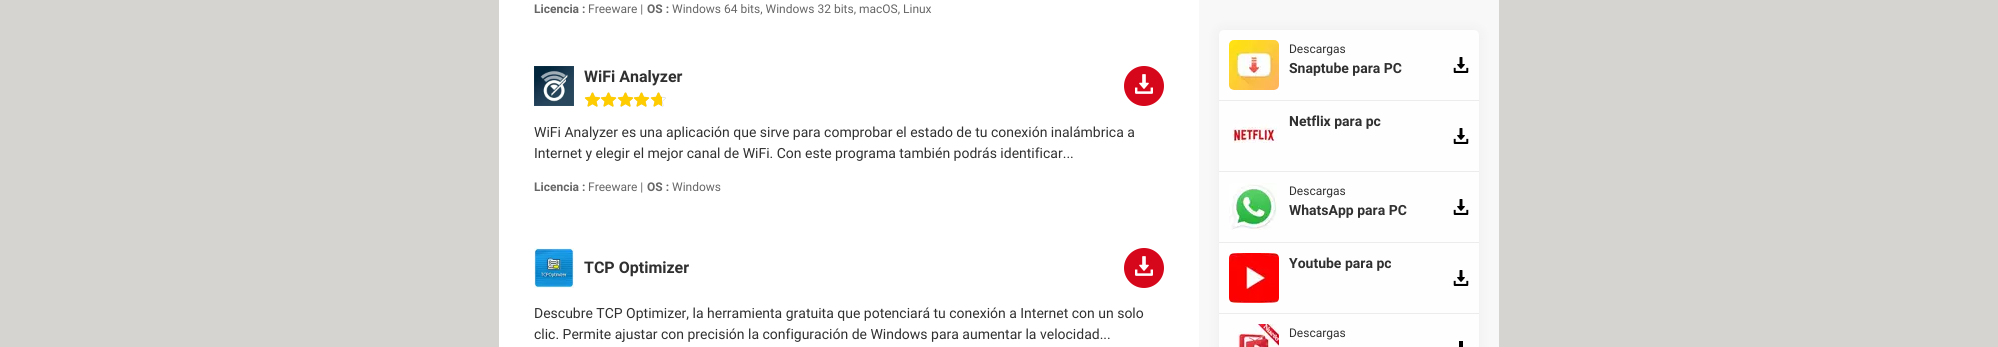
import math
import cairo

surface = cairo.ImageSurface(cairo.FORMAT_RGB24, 1998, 347)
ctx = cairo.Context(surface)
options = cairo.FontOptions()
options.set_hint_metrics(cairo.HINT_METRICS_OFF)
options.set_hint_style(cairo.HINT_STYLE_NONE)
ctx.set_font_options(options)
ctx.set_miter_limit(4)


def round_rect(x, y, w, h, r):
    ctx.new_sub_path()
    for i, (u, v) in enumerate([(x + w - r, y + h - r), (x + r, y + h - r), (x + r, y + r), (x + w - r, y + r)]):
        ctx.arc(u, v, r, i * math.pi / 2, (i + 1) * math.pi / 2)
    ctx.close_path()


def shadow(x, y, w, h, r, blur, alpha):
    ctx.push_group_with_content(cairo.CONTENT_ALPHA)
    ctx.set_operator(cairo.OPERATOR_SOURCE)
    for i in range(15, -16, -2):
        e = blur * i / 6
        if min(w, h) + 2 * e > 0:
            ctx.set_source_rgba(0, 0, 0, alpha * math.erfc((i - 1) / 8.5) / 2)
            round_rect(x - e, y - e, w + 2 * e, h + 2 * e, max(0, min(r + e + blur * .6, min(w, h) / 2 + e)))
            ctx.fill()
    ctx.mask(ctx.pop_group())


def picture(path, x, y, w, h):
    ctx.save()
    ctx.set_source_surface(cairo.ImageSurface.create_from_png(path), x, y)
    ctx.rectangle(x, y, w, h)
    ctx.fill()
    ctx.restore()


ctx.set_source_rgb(0.835, 0.831, 0.816)
ctx.paint()
ctx.set_source_rgb(1, 1, 1)
ctx.rectangle(499, 0, 700, 347)
ctx.fill()
ctx.select_font_face("Roboto", cairo.FONT_SLANT_NORMAL, cairo.FONT_WEIGHT_BOLD)
ctx.set_font_size(12)
ctx.set_source_rgb(0.4, 0.4, 0.4)
ctx.move_to(534, 13)
ctx.show_text("Licencia :")
ctx.select_font_face("Roboto")
ctx.move_to(588, 13)
ctx.show_text("Freeware |")
ctx.select_font_face("Roboto", cairo.FONT_SLANT_NORMAL, cairo.FONT_WEIGHT_BOLD)
ctx.move_to(647, 13)
ctx.show_text("OS :")
ctx.select_font_face("Roboto")
ctx.move_to(672, 13)
ctx.show_text("Windows 64 bits, Windows 32 bits, macOS, Linux")
picture("img1.png", 534, 66, 40, 40)
ctx.select_font_face("Roboto", cairo.FONT_SLANT_NORMAL, cairo.FONT_WEIGHT_BOLD)
ctx.set_font_size(16)
ctx.set_source_rgb(0.188, 0.188, 0.188)
ctx.move_to(584, 82)
ctx.show_text("WiFi Analyzer")
picture("img2.png", 585, 92, 81, 15)
picture("img3.png", 584, 92, 78, 15)
ctx.set_source_rgb(0.839, 0.027, 0.106)
ctx.arc(1144, 86, 20, 0, 2 * math.pi)
ctx.fill()
picture("img4.png", 1135, 74, 18, 20)
ctx.select_font_face("Roboto")
ctx.set_font_size(14)
ctx.set_source_rgb(0.188, 0.188, 0.188)
ctx.move_to(534, 137)
ctx.show_text("WiFi Analyzer es una aplicación que sirve para comprobar el estado de tu conexión inalámbrica a")
ctx.move_to(534, 158)
ctx.show_text("Internet y elegir el mejor canal de WiFi. Con este programa también podrás identificar...")
ctx.select_font_face("Roboto", cairo.FONT_SLANT_NORMAL, cairo.FONT_WEIGHT_BOLD)
ctx.set_font_size(12)
ctx.set_source_rgb(0.4, 0.4, 0.4)
ctx.move_to(534, 191)
ctx.show_text("Licencia :")
ctx.select_font_face("Roboto")
ctx.move_to(588, 191)
ctx.show_text("Freeware |")
ctx.select_font_face("Roboto", cairo.FONT_SLANT_NORMAL, cairo.FONT_WEIGHT_BOLD)
ctx.move_to(647, 191)
ctx.show_text("OS :")
ctx.select_font_face("Roboto")
ctx.move_to(672, 191)
ctx.show_text("Windows")
picture("img5.png", 534, 248, 40, 40)
ctx.select_font_face("Roboto", cairo.FONT_SLANT_NORMAL, cairo.FONT_WEIGHT_BOLD)
ctx.set_font_size(16)
ctx.set_source_rgb(0.188, 0.188, 0.188)
ctx.move_to(584, 273)
ctx.show_text("TCP Optimizer")
ctx.set_source_rgb(0.839, 0.027, 0.106)
ctx.new_path()
ctx.arc(1144, 268, 20, 0, 2 * math.pi)
ctx.fill()
picture("img4.png", 1135, 256, 18, 20)
ctx.select_font_face("Roboto")
ctx.set_font_size(14)
ctx.set_source_rgb(0.188, 0.188, 0.188)
ctx.move_to(534, 318)
ctx.show_text("Descubre TCP Optimizer, la herramienta gratuita que potenciará tu conexión a Internet con un solo")
ctx.move_to(534, 339)
ctx.show_text("clic. Permite ajustar con precisión la configuración de Windows para aumentar la velocidad...")
ctx.set_source_rgb(0.969, 0.969, 0.969)
ctx.rectangle(1199, 0, 300, 347)
ctx.fill()
ctx.set_source_rgb(0, 0, 0)
shadow(1219, 30, 260, 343, 5, 7, 0.05)
ctx.set_source_rgb(0.996, 0.996, 0.996)
round_rect(1219, 30, 260, 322, 5)
ctx.fill()
ctx.set_source_rgb(0.925, 0.925, 0.925)
ctx.rectangle(1219, 100, 260, 1)
ctx.fill()
picture("img6.png", 1453, 57, 16, 16)
picture("img7.png", 1229, 40, 50, 50)
ctx.set_font_size(12)
ctx.set_source_rgb(0.188, 0.188, 0.188)
ctx.move_to(1289, 53)
ctx.show_text("Descargas")
ctx.select_font_face("Roboto", cairo.FONT_SLANT_NORMAL, cairo.FONT_WEIGHT_BOLD)
ctx.set_font_size(14)
ctx.move_to(1289, 73)
ctx.show_text("Snaptube para PC")
ctx.set_source_rgb(0.925, 0.925, 0.925)
ctx.rectangle(1219, 171, 260, 1)
ctx.fill()
picture("img6.png", 1453, 128, 16, 16)
ctx.set_source_rgb(0.188, 0.188, 0.188)
ctx.move_to(1289, 126)
ctx.show_text("Netflix para pc")
picture("img8.png", 1232, 124, 46, 19)
ctx.set_source_rgb(0.925, 0.925, 0.925)
ctx.rectangle(1219, 242, 260, 1)
ctx.fill()
picture("img6.png", 1453, 199, 16, 16)
picture("img9.png", 1229, 183, 48, 47)
ctx.select_font_face("Roboto")
ctx.set_font_size(12)
ctx.set_source_rgb(0.188, 0.188, 0.188)
ctx.move_to(1289, 195)
ctx.show_text("Descargas")
ctx.select_font_face("Roboto", cairo.FONT_SLANT_NORMAL, cairo.FONT_WEIGHT_BOLD)
ctx.set_font_size(14)
ctx.move_to(1289, 215)
ctx.show_text("WhatsApp para PC")
ctx.set_source_rgb(0.925, 0.925, 0.925)
ctx.rectangle(1219, 313, 260, 1)
ctx.fill()
picture("img6.png", 1453, 270, 16, 16)
picture("img10.png", 1229, 253, 50, 50)
ctx.set_source_rgb(0.188, 0.188, 0.188)
ctx.move_to(1289, 268)
ctx.show_text("Youtube para pc")
ctx.set_source_rgb(0, 0, 0)
ctx.rectangle(1459, 341, 4, 6)
ctx.fill()
picture("img11.png", 1237, 324, 42, 23)
ctx.select_font_face("Roboto")
ctx.set_font_size(12)
ctx.set_source_rgb(0.188, 0.188, 0.188)
ctx.move_to(1289, 337)
ctx.show_text("Descargas")
surface.write_to_png("page.png")
